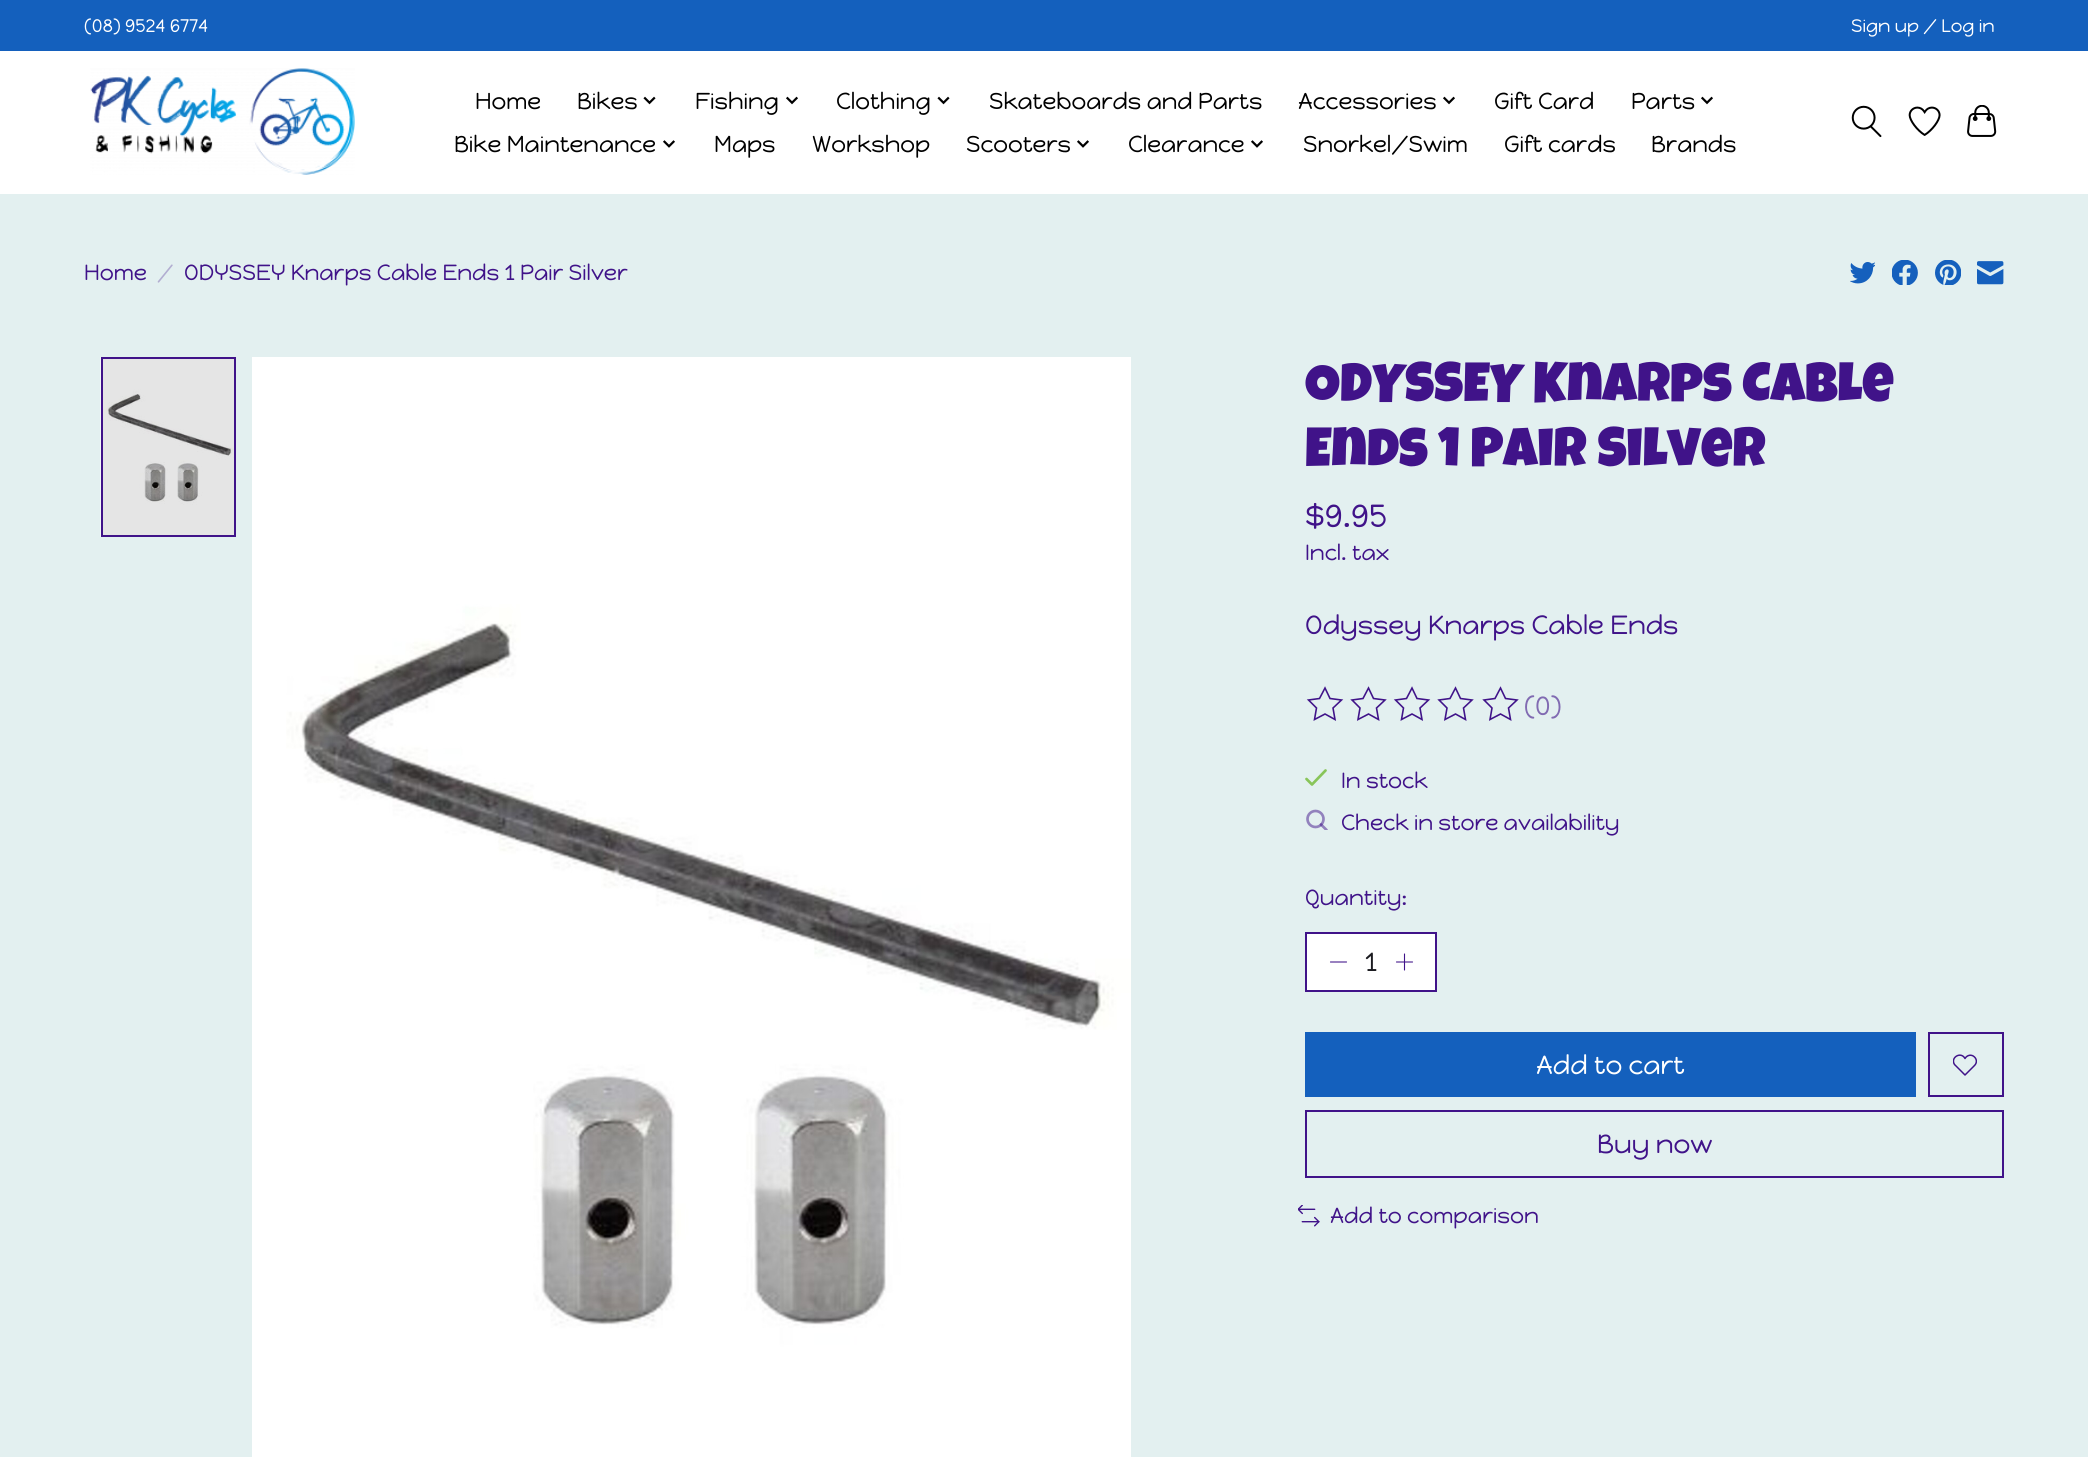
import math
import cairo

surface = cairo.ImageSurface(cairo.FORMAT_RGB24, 2088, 1457)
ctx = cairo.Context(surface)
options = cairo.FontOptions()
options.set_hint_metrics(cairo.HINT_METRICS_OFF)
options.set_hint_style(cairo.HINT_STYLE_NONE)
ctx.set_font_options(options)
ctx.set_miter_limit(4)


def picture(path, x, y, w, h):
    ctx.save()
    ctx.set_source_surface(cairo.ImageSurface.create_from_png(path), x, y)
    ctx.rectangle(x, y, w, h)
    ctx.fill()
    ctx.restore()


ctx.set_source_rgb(0.89, 0.941, 0.941)
ctx.paint()
ctx.set_source_rgb(1, 1, 1)
ctx.rectangle(0, 51, 2088, 143)
ctx.fill()
ctx.set_source_rgb(0.082, 0.376, 0.741)
ctx.rectangle(0, 0, 2088, 51)
ctx.fill()
ctx.select_font_face("Happy Monkey")
ctx.set_font_size(18.25)
ctx.set_source_rgb(1, 1, 1)
ctx.move_to(84, 32)
ctx.show_text("(08) 9524 6774")
ctx.move_to(1851, 32)
ctx.show_text("Sign up / Log in")
picture("img1.png", 90, 68, 265, 107)
ctx.set_font_size(23.1)
ctx.set_source_rgb(0, 0, 0)
ctx.move_to(475, 109)
ctx.show_text("Home")
ctx.move_to(577, 109)
ctx.show_text("Bikes")
picture("img2.png", 643, 96, 13, 9)
ctx.move_to(695, 109)
ctx.show_text("Fishing")
picture("img3.png", 786, 96, 12, 9)
ctx.move_to(836, 109)
ctx.show_text("Clothing")
picture("img2.png", 937, 96, 13, 9)
ctx.move_to(989, 109)
ctx.show_text("Skateboards and Parts")
ctx.move_to(1298, 109)
ctx.show_text("Accessories")
picture("img3.png", 1443, 96, 12, 9)
ctx.move_to(1494, 109)
ctx.show_text("Gift Card")
ctx.move_to(1631, 109)
ctx.show_text("Parts")
picture("img3.png", 1701, 96, 12, 9)
ctx.move_to(454, 152)
ctx.show_text("Bike Maintenance")
picture("img4.png", 663, 140, 12, 8)
ctx.move_to(714, 152)
ctx.show_text("Maps")
ctx.move_to(812, 152)
ctx.show_text("Workshop")
ctx.move_to(966, 152)
ctx.show_text("Scooters")
picture("img4.png", 1077, 140, 12, 8)
ctx.move_to(1128, 152)
ctx.show_text("Clearance")
picture("img4.png", 1251, 140, 12, 8)
ctx.move_to(1303, 152)
ctx.show_text("Snorkel/Swim")
ctx.move_to(1504, 152)
ctx.show_text("Gift cards")
ctx.move_to(1651, 152)
ctx.show_text("Brands")
picture("img5.png", 1851, 105, 31, 33)
picture("img6.png", 1908, 106, 33, 30)
picture("img7.png", 1967, 105, 30, 32)
ctx.set_font_size(22)
ctx.set_source_rgb(0.251, 0.075, 0.537)
ctx.move_to(84, 280)
ctx.show_text("Home")
ctx.set_source_rgb(0.698, 0.682, 0.82)
ctx.move_to(157, 280)
ctx.show_text("/")
ctx.set_source_rgb(0.251, 0.075, 0.537)
ctx.move_to(184, 280)
ctx.show_text("ODYSSEY Knarps Cable Ends 1 Pair Silver")
picture("img8.png", 1850, 262, 25, 22)
picture("img9.png", 1892, 260, 26, 25)
picture("img10.png", 1935, 260, 26, 25)
picture("img11.png", 1977, 261, 27, 24)
picture("img12.png", 100, 357, 134, 180)
ctx.rectangle(102, 358, 133, 178)
ctx.stroke()
picture("img13.png", 252, 357, 879, 1100)
ctx.select_font_face("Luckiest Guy")
ctx.set_font_size(54.75)
ctx.move_to(1305, 401)
ctx.show_text("ODYSSEY Knarps Cable")
ctx.move_to(1305, 466)
ctx.show_text("Ends 1 Pair Silver")
ctx.select_font_face("Happy Monkey")
ctx.set_font_size(32)
ctx.move_to(1305, 527)
ctx.show_text("$9.95")
ctx.set_font_size(22)
ctx.move_to(1305, 560)
ctx.show_text("Incl. tax")
ctx.set_font_size(26.4)
ctx.move_to(1305, 634)
ctx.show_text("Odyssey Knarps Cable Ends")
ctx.new_path()
ctx.move_to(1325, 688)
ctx.line_to(1330, 698.5)
ctx.line_to(1341.5, 700)
ctx.line_to(1333, 708)
ctx.line_to(1335, 719.5)
ctx.line_to(1325, 714)
ctx.line_to(1314.5, 719.5)
ctx.line_to(1316.5, 708)
ctx.line_to(1308.5, 700)
ctx.line_to(1319.5, 698.5)
ctx.close_path()
ctx.set_line_width(1.6)
ctx.stroke()
ctx.new_path()
ctx.move_to(1368.5, 688)
ctx.line_to(1373.5, 698.5)
ctx.line_to(1385, 700)
ctx.line_to(1376.5, 708)
ctx.line_to(1378.5, 719.5)
ctx.line_to(1368.5, 714)
ctx.line_to(1358, 719.5)
ctx.line_to(1360, 708)
ctx.line_to(1352, 700)
ctx.line_to(1363, 698.5)
ctx.close_path()
ctx.stroke()
ctx.new_path()
ctx.move_to(1412, 688)
ctx.line_to(1417, 698.5)
ctx.line_to(1428.5, 700)
ctx.line_to(1420, 708)
ctx.line_to(1422, 719.5)
ctx.line_to(1412, 714)
ctx.line_to(1401.5, 719.5)
ctx.line_to(1403.5, 708)
ctx.line_to(1395.5, 700)
ctx.line_to(1406.5, 698.5)
ctx.close_path()
ctx.stroke()
ctx.new_path()
ctx.move_to(1455.5, 688)
ctx.line_to(1460.5, 698.5)
ctx.line_to(1472, 700)
ctx.line_to(1463.5, 708)
ctx.line_to(1465.5, 719.5)
ctx.line_to(1455.5, 714)
ctx.line_to(1445, 719.5)
ctx.line_to(1447, 708)
ctx.line_to(1439, 700)
ctx.line_to(1450, 698.5)
ctx.close_path()
ctx.stroke()
ctx.new_path()
ctx.move_to(1500.5, 688)
ctx.line_to(1505.5, 698.5)
ctx.line_to(1517, 700)
ctx.line_to(1508.5, 708)
ctx.line_to(1510.5, 719.5)
ctx.line_to(1500.5, 714)
ctx.line_to(1490, 719.5)
ctx.line_to(1492, 708)
ctx.line_to(1484, 700)
ctx.line_to(1495, 698.5)
ctx.close_path()
ctx.stroke()
ctx.set_source_rgb(0.506, 0.42, 0.698)
ctx.move_to(1524, 715)
ctx.show_text("(0)")
ctx.new_path()
ctx.move_to(1306.5, 779)
ctx.line_to(1312, 784.5)
ctx.line_to(1325.5, 770.5)
ctx.set_source_rgb(0.533, 0.773, 0.349)
ctx.set_line_width(2.7)
ctx.set_line_cap(cairo.LINE_CAP_ROUND)
ctx.set_line_join(cairo.LINE_JOIN_ROUND)
ctx.stroke()
ctx.set_font_size(22)
ctx.set_source_rgb(0.251, 0.075, 0.537)
ctx.move_to(1341, 788)
ctx.show_text("In stock")
ctx.new_path()
ctx.arc(1315.5, 819, 8, 0, 2 * math.pi)
ctx.set_source_rgb(0.573, 0.51, 0.741)
ctx.set_line_cap(cairo.LINE_CAP_BUTT)
ctx.set_line_join(cairo.LINE_JOIN_MITER)
ctx.stroke()
ctx.save()
ctx.rectangle(1305, 809, 23, 21)
ctx.clip()
ctx.new_path()
ctx.move_to(1326.5, 830)
ctx.line_to(1321, 824.5)
ctx.set_source_rgba(0.251, 0.075, 0.537, 0.5)
ctx.set_line_cap(cairo.LINE_CAP_ROUND)
ctx.set_line_join(cairo.LINE_JOIN_ROUND)
ctx.stroke()
ctx.restore()
ctx.set_source_rgb(0.251, 0.075, 0.537)
ctx.move_to(1341, 830)
ctx.show_text("Check in store availability")
ctx.move_to(1305, 905)
ctx.show_text("Quantity:")
ctx.set_source_rgb(1, 1, 1)
ctx.rectangle(1306, 933, 130, 58)
ctx.fill_preserve()
ctx.set_source_rgb(0.251, 0.075, 0.537)
ctx.set_line_width(2)
ctx.stroke()
ctx.new_path()
ctx.move_to(1330.5, 962)
ctx.line_to(1346.5, 962)
ctx.set_line_width(1.1)
ctx.set_line_cap(cairo.LINE_CAP_ROUND)
ctx.set_line_join(cairo.LINE_JOIN_ROUND)
ctx.stroke()
ctx.set_font_size(26.4)
ctx.set_source_rgb(0.11, 0.11, 0.129)
ctx.move_to(1365, 971)
ctx.show_text("1")
ctx.new_path()
ctx.move_to(1404.5, 954)
ctx.line_to(1404.5, 970)
ctx.move_to(1396.5, 962)
ctx.line_to(1412.5, 962)
ctx.set_source_rgb(0.251, 0.075, 0.537)
ctx.stroke()
ctx.set_source_rgb(0.082, 0.376, 0.741)
ctx.rectangle(1305, 1032, 611, 65)
ctx.fill()
ctx.set_source_rgb(1, 1, 1)
ctx.move_to(1536, 1074)
ctx.show_text("Add to cart")
ctx.rectangle(1929, 1033, 74, 63)
ctx.set_source_rgb(0.251, 0.075, 0.537)
ctx.set_line_width(2)
ctx.set_line_cap(cairo.LINE_CAP_BUTT)
ctx.set_line_join(cairo.LINE_JOIN_MITER)
ctx.stroke()
ctx.save()
ctx.rectangle(1953, 1053, 24, 24)
ctx.clip()
ctx.new_path()
ctx.move_to(1974.5, 1057)
ctx.curve_to(1971.5, 1054, 1967, 1055, 1965, 1058.5)
ctx.curve_to(1961, 1051, 1950, 1057.5, 1954.5, 1064.5)
ctx.line_to(1965, 1075)
ctx.line_to(1974.5, 1065.5)
ctx.curve_to(1977, 1063, 1977, 1059.5, 1974.5, 1057)
ctx.close_path()
ctx.set_line_width(1.5)
ctx.set_line_cap(cairo.LINE_CAP_ROUND)
ctx.set_line_join(cairo.LINE_JOIN_ROUND)
ctx.stroke()
ctx.restore()
ctx.rectangle(1306, 1111, 697, 66)
ctx.stroke()
ctx.move_to(1597, 1153)
ctx.show_text("Buy now")
picture("img14.png", 1298, 1205, 22, 22)
ctx.set_font_size(22)
ctx.move_to(1330, 1223)
ctx.show_text("Add to comparison")
surface.write_to_png("page.png")
